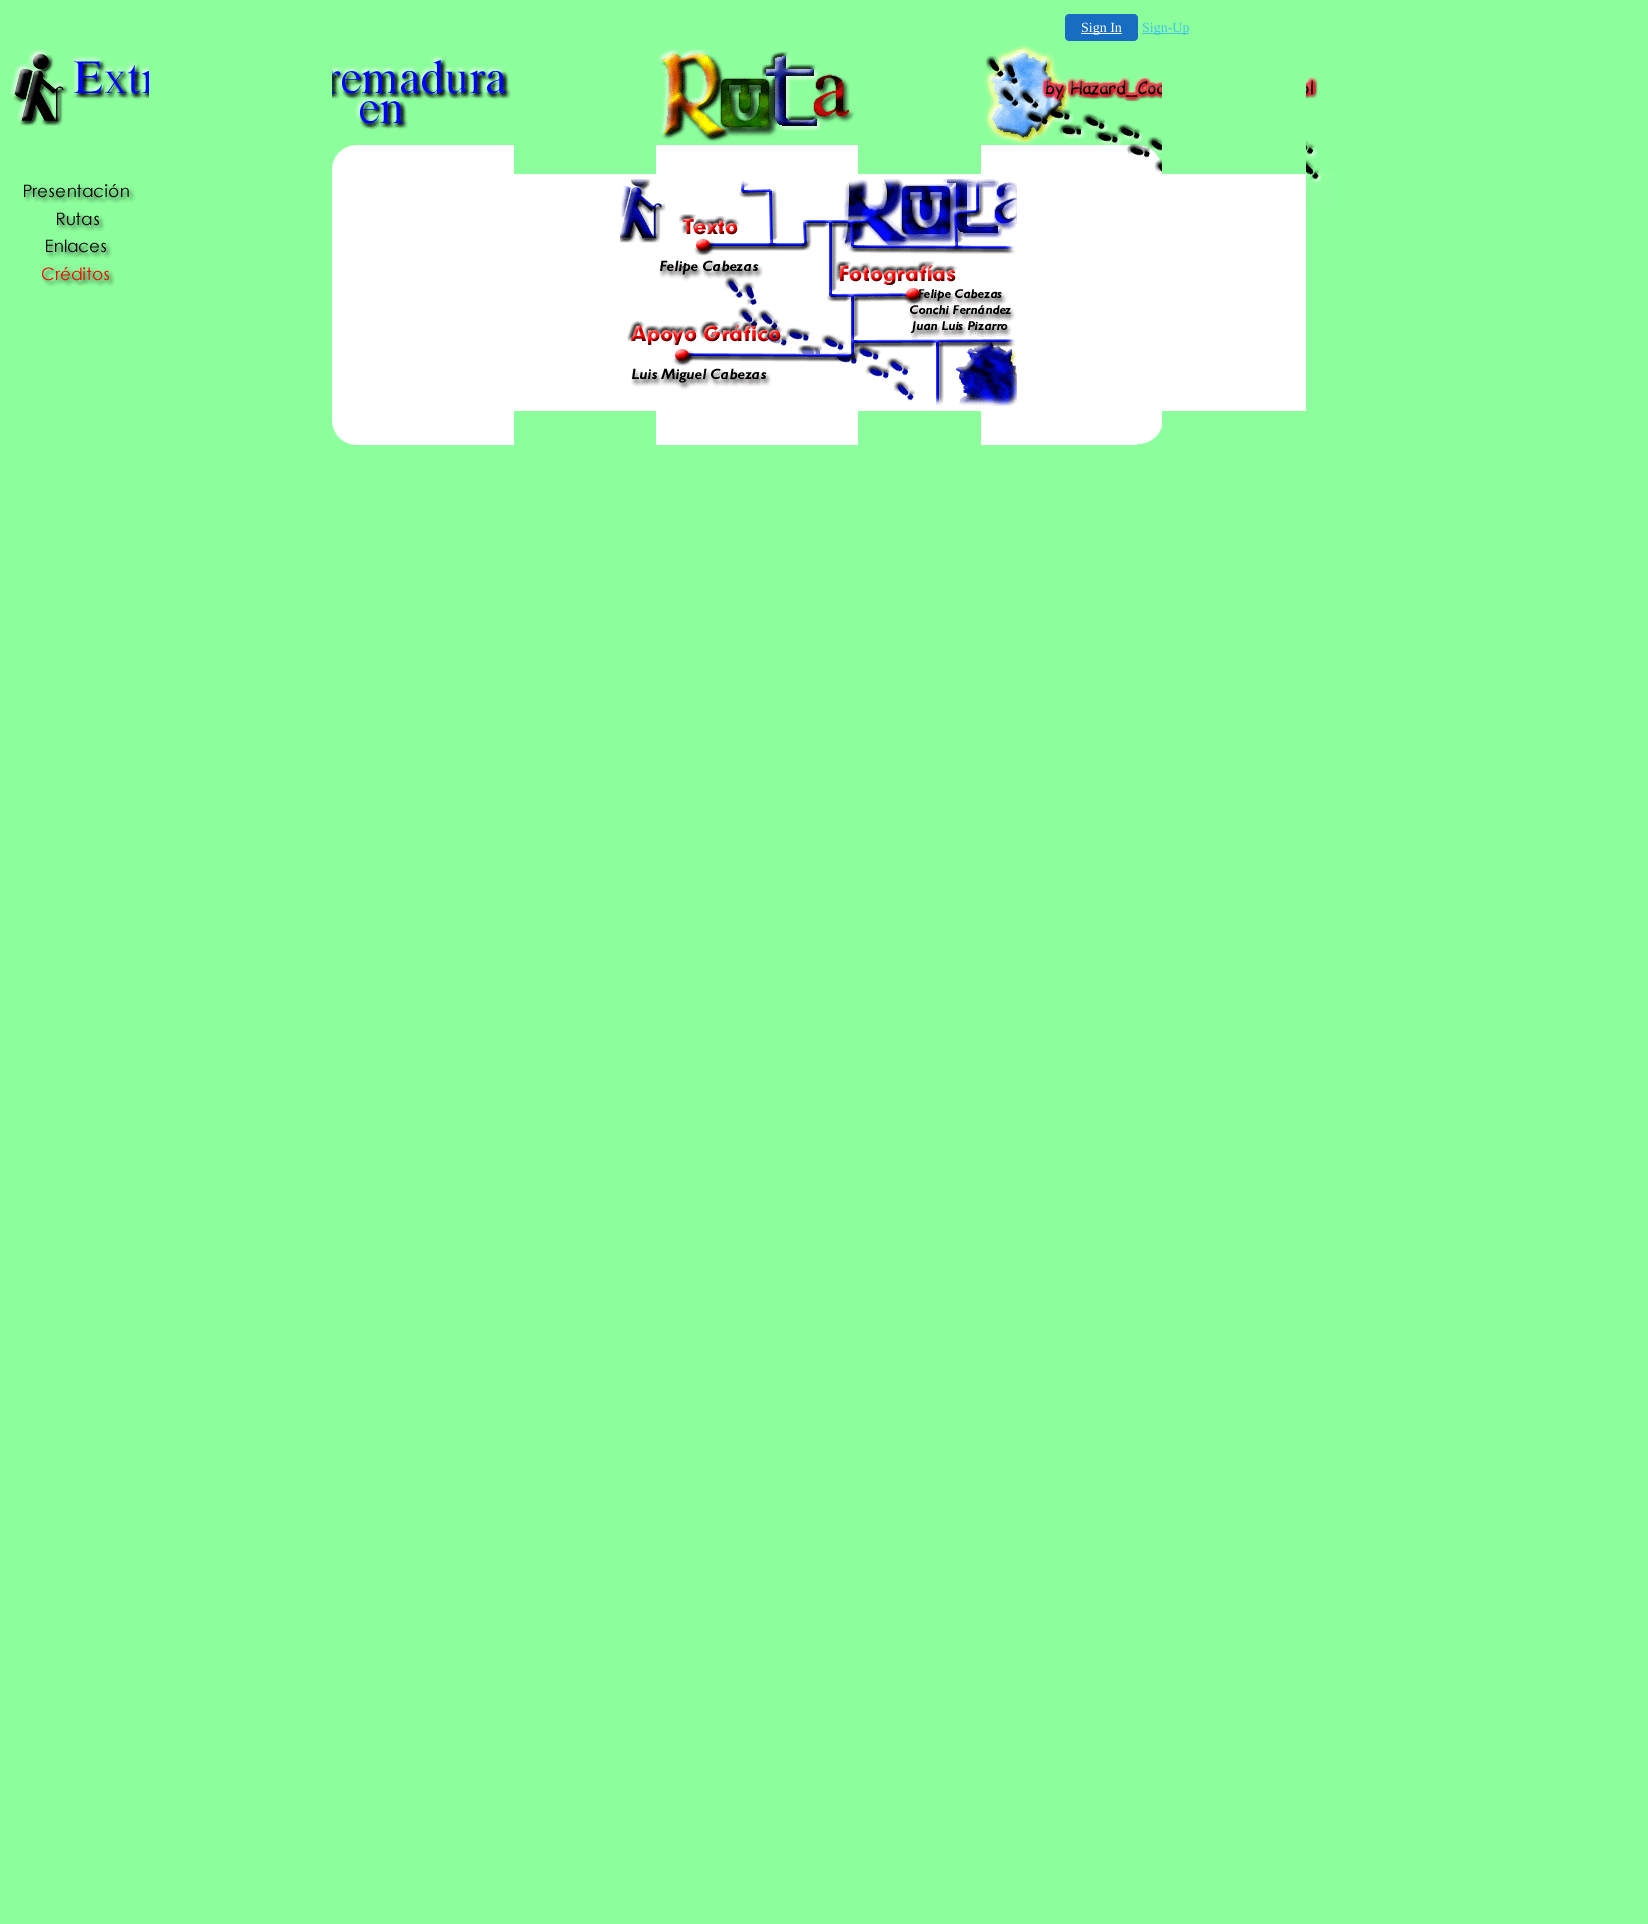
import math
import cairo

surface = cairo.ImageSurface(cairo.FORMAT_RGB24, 1648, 1924)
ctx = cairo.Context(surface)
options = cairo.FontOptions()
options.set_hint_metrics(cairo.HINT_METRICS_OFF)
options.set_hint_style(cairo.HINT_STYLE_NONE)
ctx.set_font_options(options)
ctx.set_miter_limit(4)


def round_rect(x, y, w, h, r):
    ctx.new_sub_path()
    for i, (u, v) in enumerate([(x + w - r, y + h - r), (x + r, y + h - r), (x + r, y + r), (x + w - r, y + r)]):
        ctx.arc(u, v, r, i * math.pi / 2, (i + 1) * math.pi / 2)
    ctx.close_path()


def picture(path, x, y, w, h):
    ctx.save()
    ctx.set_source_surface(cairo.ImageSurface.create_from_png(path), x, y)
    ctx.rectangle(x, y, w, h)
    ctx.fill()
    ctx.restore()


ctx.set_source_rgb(0.549, 1, 0.612)
ctx.paint()
ctx.set_source_rgb(0.086, 0.427, 0.761)
round_rect(1065.5, 14.5, 72, 26, 3.5)
ctx.fill_preserve()
ctx.set_line_width(1)
ctx.stroke()
ctx.set_source_rgb(1, 1, 1)
ctx.rectangle(1081, 33, 41, 1)
ctx.fill()
ctx.select_font_face("Liberation Serif")
ctx.set_font_size(14)
ctx.move_to(1081, 32)
ctx.show_text("Sign In")
ctx.set_source_rgb(0.255, 0.773, 0.894)
ctx.rectangle(1142, 33, 47, 1)
ctx.fill()
ctx.move_to(1142, 32)
ctx.show_text("Sign-Up")
picture("img1.png", 9, 46, 140, 81)
picture("img2.png", 332, 56, 182, 118)
picture("img3.png", 656, 49, 202, 125)
picture("img4.png", 981, 46, 181, 128)
picture("img5.png", 1306, 76, 16, 98)
picture("img6.png", 23, 184, 113, 20)
ctx.set_source_rgb(1, 1, 1)
ctx.rectangle(332, 174, 974, 237)
ctx.fill()
picture("img7.png", 620, 179, 199, 211)
picture("img8.png", 819, 179, 198, 227)
picture("img9.png", 1306, 174, 29, 34)
picture("img10.png", 56, 212, 49, 20)
picture("img11.png", 45, 239, 67, 20)
picture("img12.png", 41, 267, 74, 20)
picture("img13.png", 332, 411, 182, 34)
ctx.rectangle(656, 411, 202, 34)
ctx.fill()
picture("img14.png", 981, 411, 181, 34)
surface.write_to_png("page.png")
